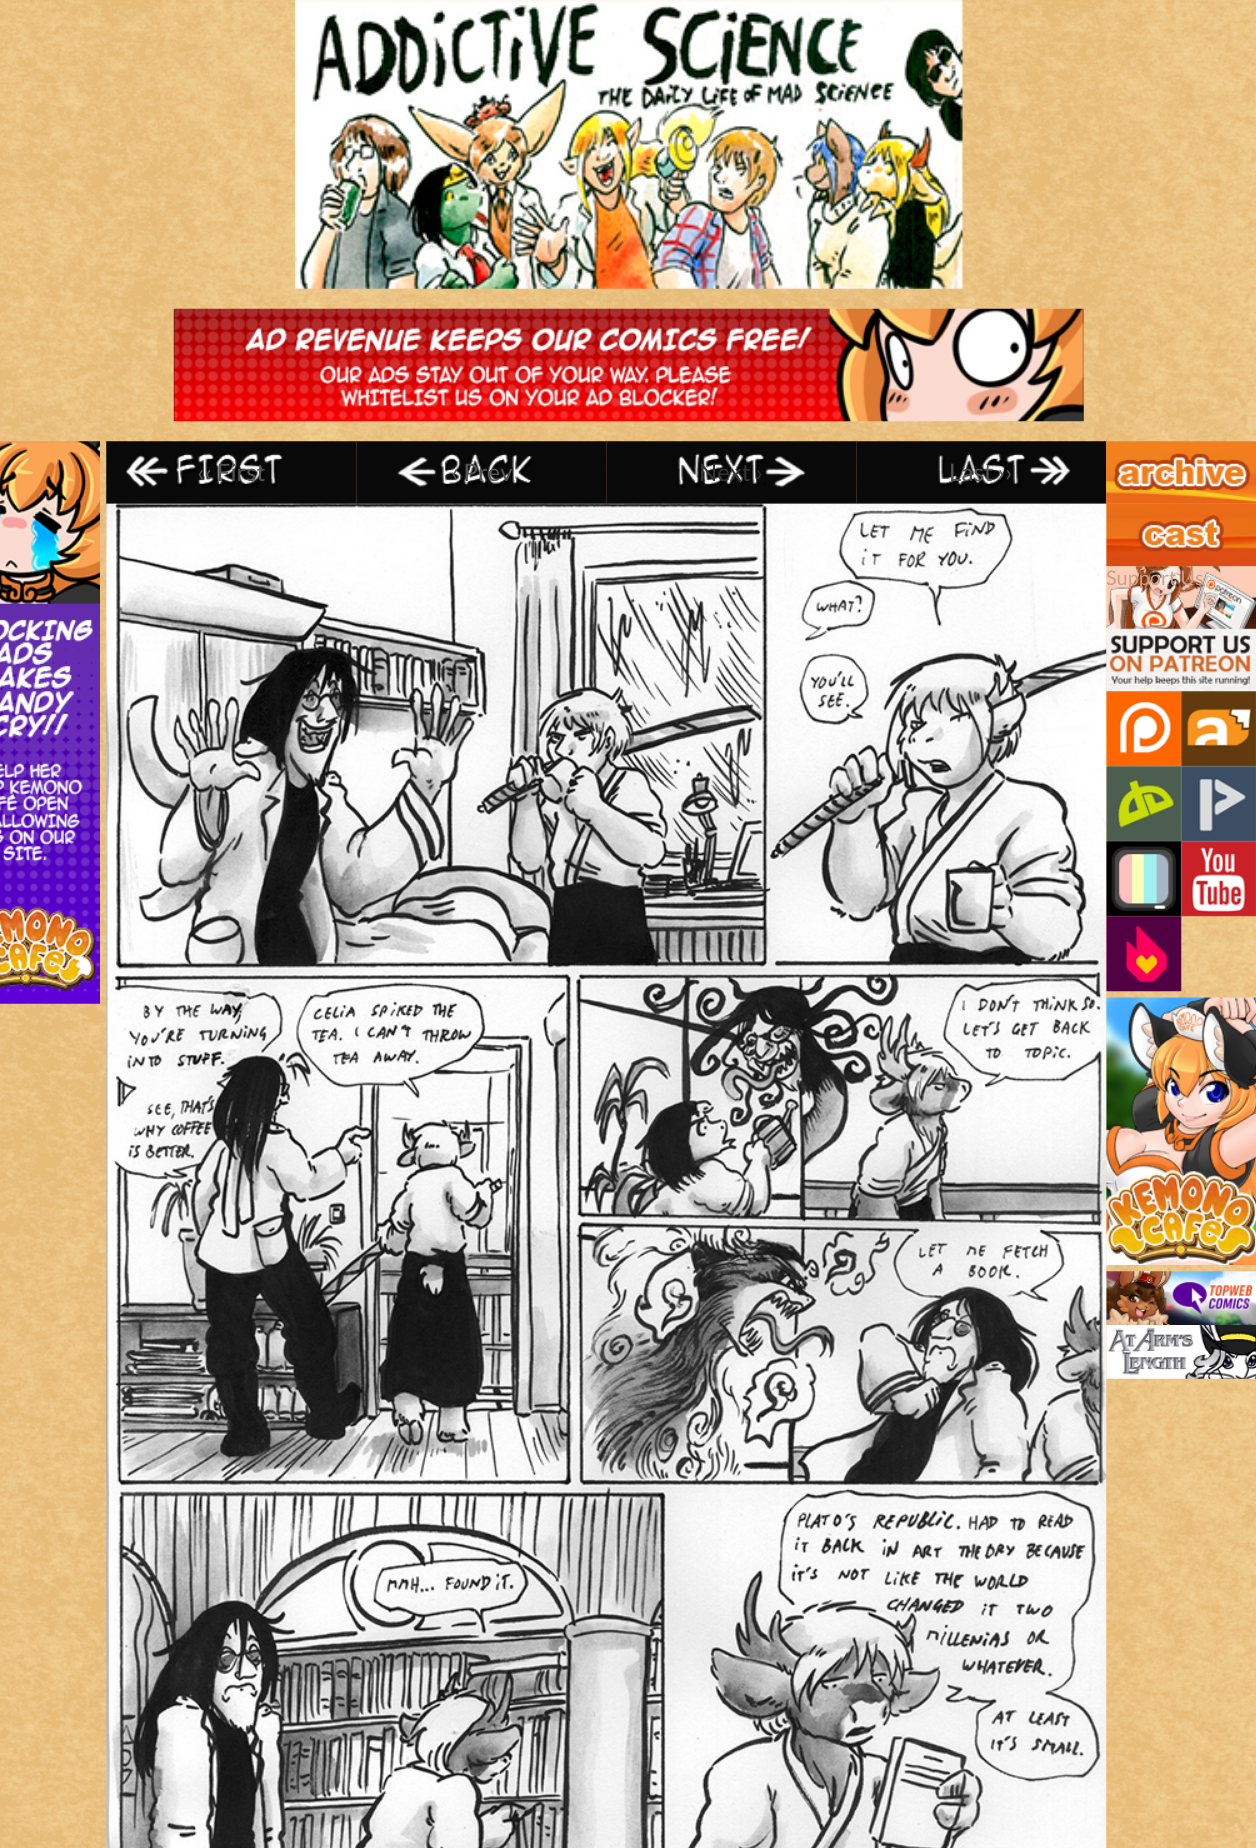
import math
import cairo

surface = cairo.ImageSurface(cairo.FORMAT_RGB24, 1256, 1848)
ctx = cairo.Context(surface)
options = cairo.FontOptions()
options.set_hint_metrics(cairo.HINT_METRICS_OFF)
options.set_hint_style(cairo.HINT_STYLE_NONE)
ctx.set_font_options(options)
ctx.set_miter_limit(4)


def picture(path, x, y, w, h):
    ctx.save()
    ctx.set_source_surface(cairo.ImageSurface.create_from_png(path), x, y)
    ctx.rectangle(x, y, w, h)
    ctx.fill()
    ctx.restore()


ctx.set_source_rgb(1, 1, 1)
ctx.paint()
picture("img1.png", 0, 0, 1256, 1848)
picture("img2.png", 295, 0, 668, 289)
picture("img3.png", 173, 308, 911, 114)
picture("img4.png", 0, 441, 100, 563)
picture("img5.png", 106, 441, 251, 63)
ctx.select_font_face("Lato")
ctx.set_font_size(24)
ctx.set_source_rgb(0.333, 0.333, 0.333)
ctx.move_to(197, 481)
ctx.show_text("‹‹ First")
picture("img6.png", 356, 441, 251, 63)
ctx.move_to(451, 481)
ctx.show_text("‹ Prev")
picture("img7.png", 606, 441, 251, 63)
ctx.set_source_rgb(0.208, 0.208, 0.208)
ctx.move_to(699, 481)
ctx.show_text("Next ›")
picture("img8.png", 856, 441, 251, 63)
ctx.set_source_rgb(0.333, 0.333, 0.333)
ctx.move_to(949, 481)
ctx.show_text("Last ››")
picture("img10.png", 1106, 441, 150, 63)
picture("img11.png", 1106, 503, 150, 64)
picture("img12.png", 1106, 566, 150, 126)
ctx.set_font_size(20)
ctx.set_source_rgb(0.8, 0.624, 0.533)
ctx.move_to(1106, 585)
ctx.show_text("Support Us")
picture("img13.png", 1106, 691, 76, 76)
picture("img14.png", 1181, 691, 75, 76)
picture("img15.png", 1106, 766, 76, 76)
picture("img16.png", 1181, 766, 75, 76)
picture("img17.png", 1106, 841, 76, 76)
picture("img18.png", 1181, 841, 75, 76)
picture("img19.png", 1106, 916, 76, 76)
picture("img20.png", 1106, 997, 150, 268)
picture("img21.png", 1106, 1271, 150, 54)
picture("img22.png", 1106, 1325, 150, 54)
picture("img9.png", 106, 503, 1001, 1345)
surface.write_to_png("page.png")
